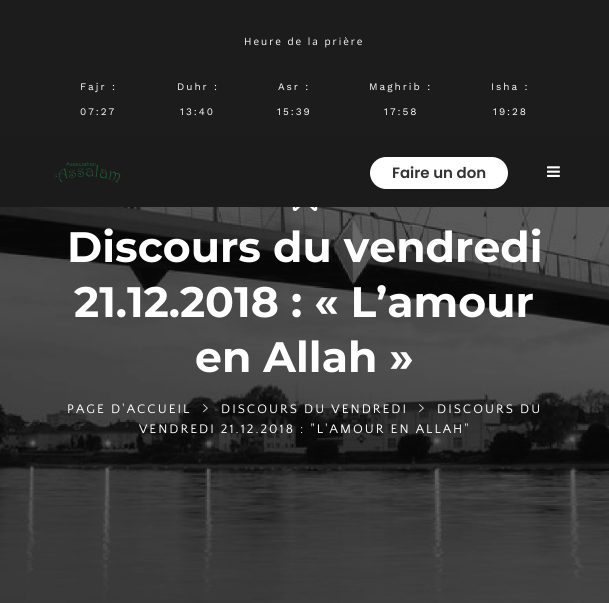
import math
import cairo

surface = cairo.ImageSurface(cairo.FORMAT_RGB24, 609, 603)
ctx = cairo.Context(surface)
options = cairo.FontOptions()
options.set_hint_metrics(cairo.HINT_METRICS_OFF)
options.set_hint_style(cairo.HINT_STYLE_NONE)
ctx.set_font_options(options)
ctx.set_miter_limit(4)


def spaced_text(x, y, s, letter, word):
    ctx.move_to(x, y)
    for ch in s:
        ctx.show_text(ch)
        ctx.rel_move_to(letter + word * (ch == ' '), 0)


def round_rect(x, y, w, h, r):
    ctx.new_sub_path()
    for i, (u, v) in enumerate([(x + w - r, y + h - r), (x + r, y + h - r), (x + r, y + r), (x + w - r, y + r)]):
        ctx.arc(u, v, r, i * math.pi / 2, (i + 1) * math.pi / 2)
    ctx.close_path()


def picture(path, x, y, w, h):
    ctx.save()
    ctx.set_source_surface(cairo.ImageSurface.create_from_png(path), x, y)
    ctx.rectangle(x, y, w, h)
    ctx.fill()
    ctx.restore()


ctx.set_source_rgb(1, 1, 1)
ctx.paint()
ctx.set_source_rgb(0.11, 0.11, 0.11)
ctx.rectangle(0, 0, 609, 135)
ctx.fill()
ctx.select_font_face("Open Sans")
ctx.set_font_size(10)
ctx.set_source_rgb(1, 1, 1)
spaced_text(244, 45, "Heure de la prière", 2, 0)
ctx.select_font_face("Work Sans")
spaced_text(80, 90, "Fajr :", 2, 0)
spaced_text(80, 115, "07:27", 2, 0)
spaced_text(177, 90, "Duhr :", 2, 0)
spaced_text(180, 115, "13:40", 2, 0)
spaced_text(278, 90, "Asr :", 2, 0)
spaced_text(277, 115, "15:39", 2, 0)
spaced_text(369, 90, "Maghrib :", 2, 0)
spaced_text(384, 115, "17:58", 2, 0)
spaced_text(491, 90, "Isha :", 2, 0)
spaced_text(493, 115, "19:28", 2, 0)
ctx.set_source_rgb(0.106, 0.106, 0.106)
ctx.rectangle(0, 135, 609, 72)
ctx.fill()
picture("img1.png", 55, 161, 66, 22)
ctx.set_source_rgb(1, 1, 1)
round_rect(371, 158, 136, 30, 15)
ctx.fill_preserve()
ctx.stroke()
ctx.select_font_face("Poppins SemiBold")
ctx.set_font_size(15)
ctx.set_source_rgb(0.2, 0.2, 0.2)
ctx.move_to(392, 178)
ctx.show_text("Faire un don")
picture("img2.png", 547, 166, 13, 11)
picture("img3.png", 0, 207, 609, 396)
picture("img4.png", 292, 207, 26, 4)
ctx.select_font_face("Montserrat Thin")
ctx.set_font_size(42.6)
ctx.set_source_rgb(1, 1, 1)
ctx.move_to(67, 262)
ctx.show_text("Discours du vendredi")
ctx.move_to(74, 317)
ctx.show_text("21.12.2018 : « L’amour")
ctx.move_to(195, 372)
ctx.show_text("en Allah »")
ctx.select_font_face("Quattrocento Sans")
ctx.set_font_size(13)
spaced_text(67, 413, "PAGE D'ACCUEIL", 2, 0)
picture("img5.png", 203, 404, 5, 9)
spaced_text(221, 413, "DISCOURS DU VENDREDI", 2, 0)
picture("img6.png", 419, 404, 5, 9)
spaced_text(437, 413, "DISCOURS DU", 2, 0)
spaced_text(139, 433, "VENDREDI 21.12.2018 : \"L'AMOUR EN ALLAH\"", 2, 0)
surface.write_to_png("page.png")
